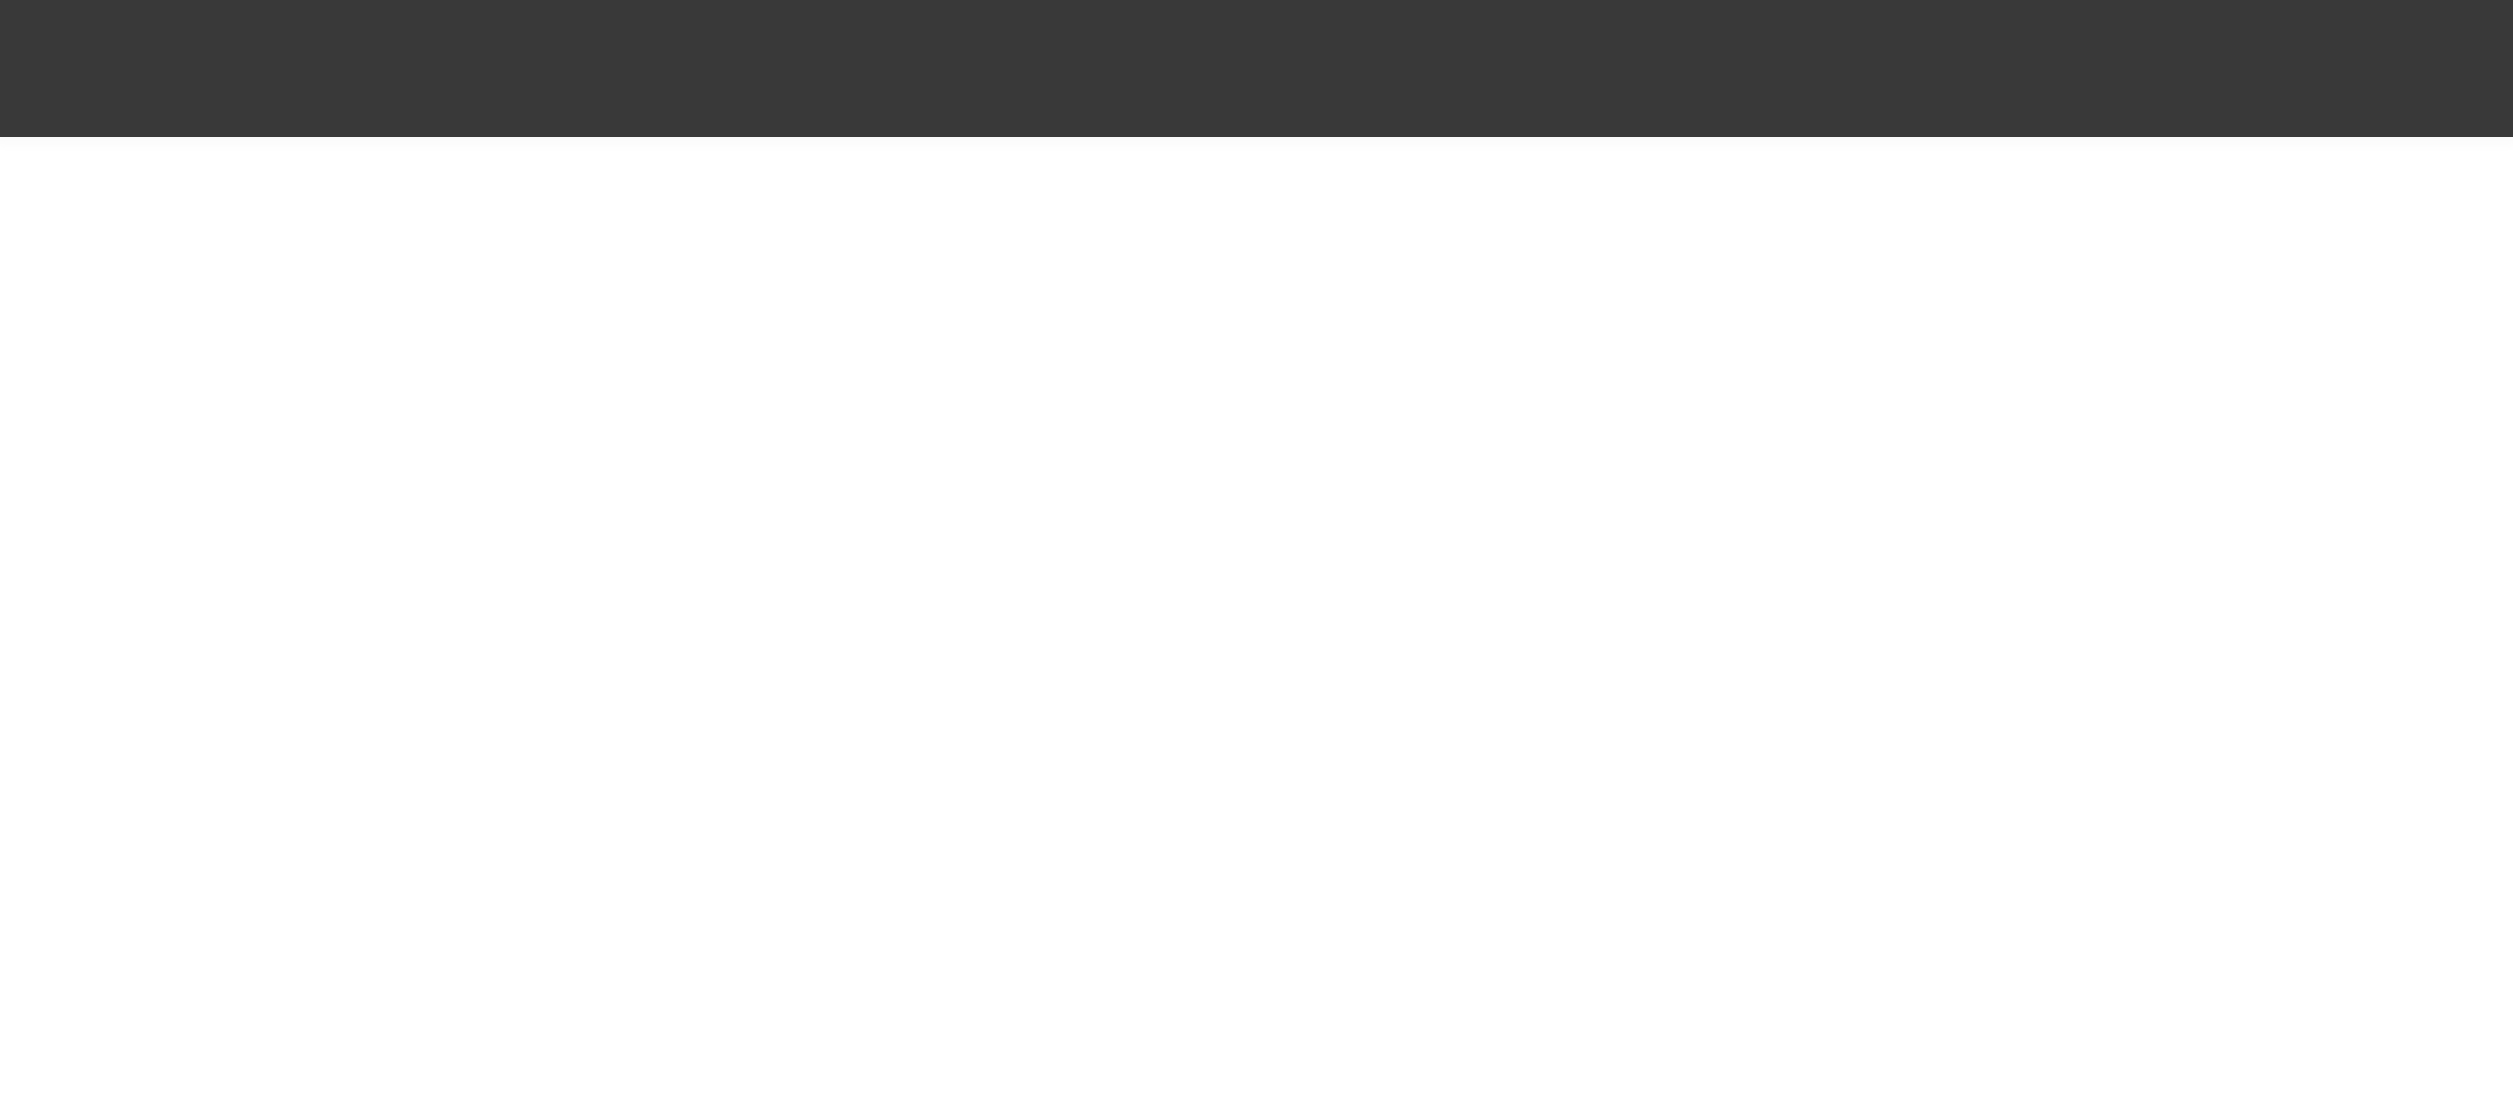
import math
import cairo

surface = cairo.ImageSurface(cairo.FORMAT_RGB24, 2513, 1095)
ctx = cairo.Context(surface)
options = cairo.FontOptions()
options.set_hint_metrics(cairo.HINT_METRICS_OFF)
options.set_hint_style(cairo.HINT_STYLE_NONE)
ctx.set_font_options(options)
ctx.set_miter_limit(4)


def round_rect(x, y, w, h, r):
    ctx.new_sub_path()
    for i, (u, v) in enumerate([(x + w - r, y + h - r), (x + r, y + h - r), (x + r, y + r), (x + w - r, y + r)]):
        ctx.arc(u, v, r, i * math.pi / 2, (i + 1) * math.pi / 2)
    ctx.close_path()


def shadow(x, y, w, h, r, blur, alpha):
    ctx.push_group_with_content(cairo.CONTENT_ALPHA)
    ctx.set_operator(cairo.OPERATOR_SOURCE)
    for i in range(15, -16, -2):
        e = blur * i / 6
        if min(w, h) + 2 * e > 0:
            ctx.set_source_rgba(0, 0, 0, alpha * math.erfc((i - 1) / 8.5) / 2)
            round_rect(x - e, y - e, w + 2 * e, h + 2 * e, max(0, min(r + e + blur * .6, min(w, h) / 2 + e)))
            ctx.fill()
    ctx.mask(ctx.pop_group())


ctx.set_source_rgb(1, 1, 1)
ctx.paint()
ctx.set_source_rgb(0, 0, 0)
shadow(0, 0, 2513, 137, 0, 9, 0.05)
ctx.set_source_rgb(0.224, 0.224, 0.224)
ctx.rectangle(0, 0, 2513, 137)
ctx.fill()
surface.write_to_png("page.png")
